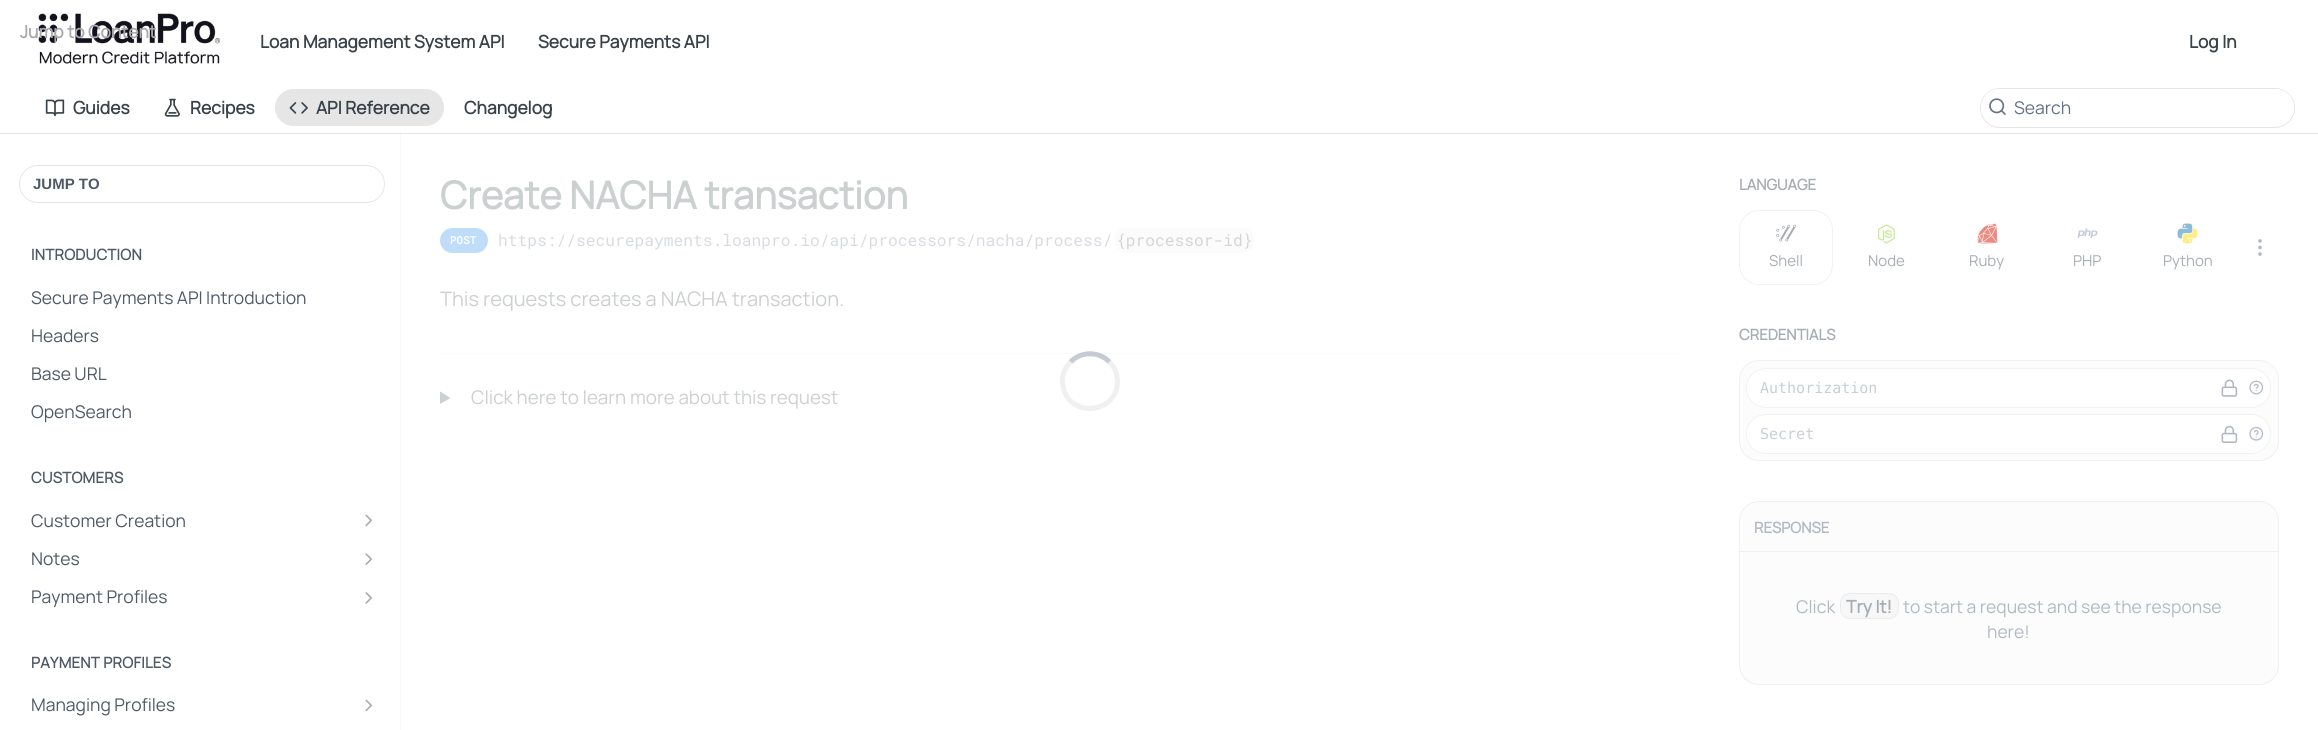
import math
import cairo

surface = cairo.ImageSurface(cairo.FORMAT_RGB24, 2318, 730)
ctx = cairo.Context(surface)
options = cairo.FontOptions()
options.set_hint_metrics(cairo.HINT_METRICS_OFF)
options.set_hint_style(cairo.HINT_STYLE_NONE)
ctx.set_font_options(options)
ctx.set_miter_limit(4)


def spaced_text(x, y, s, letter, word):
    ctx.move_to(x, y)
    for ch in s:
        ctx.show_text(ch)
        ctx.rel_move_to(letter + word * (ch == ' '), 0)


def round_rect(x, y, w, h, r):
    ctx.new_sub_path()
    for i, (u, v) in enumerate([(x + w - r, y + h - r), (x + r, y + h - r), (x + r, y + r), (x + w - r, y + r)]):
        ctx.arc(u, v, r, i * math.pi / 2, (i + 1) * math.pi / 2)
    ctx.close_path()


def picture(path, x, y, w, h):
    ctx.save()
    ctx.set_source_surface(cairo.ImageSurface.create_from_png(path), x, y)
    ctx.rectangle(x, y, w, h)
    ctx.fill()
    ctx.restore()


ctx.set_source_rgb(1, 1, 1)
ctx.paint()
ctx.set_source_rgb(0.976, 0.976, 0.976)
ctx.new_path()
ctx.move_to(1, 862)
ctx.line_to(1, 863)
ctx.line_to(401, 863)
ctx.line_to(401, 133)
ctx.line_to(400, 133)
ctx.line_to(400, 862)
ctx.close_path()
ctx.fill()
ctx.set_source_rgba(0, 0, 0, 0.1)
ctx.new_path()
ctx.move_to(0, 132)
ctx.line_to(0, 134)
ctx.line_to(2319, 134)
ctx.line_to(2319, 1)
ctx.line_to(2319, 132)
ctx.close_path()
ctx.fill()
ctx.set_source_rgb(1, 1, 1)
ctx.rectangle(0, 132, 2318, 1)
ctx.fill()
picture("img1.png", 38, 13, 182, 51)
ctx.select_font_face("Manrope", cairo.FONT_SLANT_NORMAL, cairo.FONT_WEIGHT_BOLD)
ctx.set_font_size(17.5)
ctx.set_source_rgb(0.663, 0.663, 0.678)
ctx.move_to(20, 38)
ctx.show_text("Jump to Content")
ctx.set_source_rgb(0.22, 0.259, 0.282)
ctx.move_to(260, 48)
ctx.show_text("Loan Management System API")
ctx.move_to(538, 48)
ctx.show_text("Secure Payments API")
ctx.move_to(2189, 48)
ctx.show_text("Log In")
picture("img2.png", 45, 99, 20, 18)
ctx.move_to(73, 114)
ctx.show_text("Guides")
picture("img3.png", 164, 98, 16, 19)
ctx.move_to(190, 114)
ctx.show_text("Recipes")
ctx.set_source_rgb(0.902, 0.902, 0.902)
round_rect(275, 89, 169, 37, 18.5)
ctx.fill()
picture("img4.png", 289, 102, 19, 12)
ctx.set_source_rgb(0.22, 0.259, 0.282)
ctx.move_to(316, 114)
ctx.show_text("API Reference")
ctx.move_to(464, 114)
ctx.show_text("Changelog")
round_rect(1980.5, 88.5, 314, 39, 19.5)
ctx.set_source_rgb(0.902, 0.902, 0.902)
ctx.set_line_width(1)
ctx.stroke()
ctx.set_source_rgb(1, 1, 1)
round_rect(1981, 89, 313, 37, 18.5)
ctx.fill()
picture("img5.png", 1989, 98, 17, 17)
ctx.select_font_face("Manrope ExtraLight")
ctx.set_source_rgb(0.388, 0.447, 0.533)
ctx.move_to(2014, 114)
ctx.show_text("Search")
round_rect(19.5, 165.5, 365, 37, 18.5)
ctx.set_source_rgb(0.902, 0.902, 0.902)
ctx.stroke()
ctx.select_font_face("Liberation Sans", cairo.FONT_SLANT_NORMAL, cairo.FONT_WEIGHT_BOLD)
ctx.set_font_size(15)
ctx.set_source_rgb(0.31, 0.353, 0.4)
ctx.move_to(33, 189)
ctx.show_text("JUMP TO")
ctx.select_font_face("Manrope", cairo.FONT_SLANT_NORMAL, cairo.FONT_WEIGHT_BOLD)
spaced_text(31, 260, "INTRODUCTION", 0.25, 0)
ctx.select_font_face("Manrope ExtraLight")
ctx.set_font_size(17.5)
ctx.move_to(31, 304)
ctx.show_text("Secure Payments API Introduction")
ctx.move_to(31, 342)
ctx.show_text("Headers")
ctx.move_to(31, 380)
ctx.show_text("Base URL")
ctx.move_to(31, 418)
ctx.show_text("OpenSearch")
ctx.select_font_face("Manrope", cairo.FONT_SLANT_NORMAL, cairo.FONT_WEIGHT_BOLD)
ctx.set_font_size(15)
spaced_text(31, 483, "CUSTOMERS", 0.25, 0)
ctx.select_font_face("Manrope ExtraLight")
ctx.set_font_size(17.5)
ctx.move_to(31, 527)
ctx.show_text("Customer Creation")
picture("img6.png", 365, 514, 7, 13)
ctx.move_to(31, 565)
ctx.show_text("Notes")
picture("img7.png", 365, 553, 7, 12)
ctx.move_to(31, 603)
ctx.show_text("Payment Profiles")
picture("img8.png", 365, 592, 7, 12)
ctx.select_font_face("Manrope", cairo.FONT_SLANT_NORMAL, cairo.FONT_WEIGHT_BOLD)
ctx.set_font_size(15)
spaced_text(31, 668, "PAYMENT PROFILES", 0.25, 0)
ctx.select_font_face("Manrope ExtraLight")
ctx.set_font_size(17.5)
ctx.move_to(31, 711)
ctx.show_text("Managing Profiles")
picture("img6.png", 365, 699, 7, 13)
ctx.set_source_rgb(0.976, 0.976, 0.976)
ctx.rectangle(440, 353, 1239, 1)
ctx.fill()
ctx.select_font_face("Manrope", cairo.FONT_SLANT_NORMAL, cairo.FONT_WEIGHT_BOLD)
ctx.set_font_size(38)
ctx.set_source_rgb(0.804, 0.816, 0.82)
ctx.move_to(440, 209)
ctx.show_text("Create NACHA transaction")
ctx.set_source_rgb(0.749, 0.863, 0.973)
round_rect(440, 228, 48, 25, 12.5)
ctx.fill()
ctx.select_font_face("Roboto Mono SemiBold")
ctx.set_font_size(11)
ctx.set_source_rgb(1, 1, 1)
ctx.move_to(450, 244)
ctx.show_text("POST")
ctx.select_font_face("Roboto Mono")
ctx.set_font_size(16.25)
ctx.set_source_rgb(0.847, 0.863, 0.882)
ctx.move_to(498, 246)
ctx.show_text("https://securepayments.loanpro.io/api/processors/nacha/process/")
ctx.save()
ctx.rectangle(498, 228, 758, 25)
ctx.clip()
ctx.set_source_rgb(0.984, 0.984, 0.984)
round_rect(1114, 225, 141, 28, 14)
ctx.fill()
ctx.restore()
ctx.set_source_rgb(0.827, 0.839, 0.851)
ctx.move_to(1116, 246)
ctx.show_text("{processor-id}")
ctx.select_font_face("Manrope ExtraLight")
ctx.set_font_size(20)
ctx.set_source_rgb(0.804, 0.816, 0.82)
ctx.move_to(440, 306)
ctx.show_text("This requests creates a NACHA transaction.")
ctx.new_path()
ctx.move_to(440, 391.5)
ctx.line_to(450.5, 398)
ctx.line_to(440, 404)
ctx.close_path()
ctx.fill()
ctx.set_font_size(18.75)
ctx.move_to(471, 404)
ctx.show_text("Click here to learn more about this request")
ctx.new_path()
ctx.move_to(1070.5, 362)
ctx.curve_to(1081, 351, 1099, 351, 1109.5, 362)
ctx.set_source_rgb(0.776, 0.796, 0.827)
ctx.set_line_width(5)
ctx.stroke()
ctx.new_path()
ctx.move_to(1109.5, 362)
ctx.curve_to(1114.5, 367, 1117.5, 374, 1117.5, 381)
ctx.curve_to(1117.5, 414, 1069.5, 419, 1063, 386.5)
ctx.curve_to(1061, 377.5, 1064, 368, 1070.5, 362)
ctx.set_source_rgb(0.941, 0.941, 0.941)
ctx.stroke()
ctx.select_font_face("Manrope", cairo.FONT_SLANT_NORMAL, cairo.FONT_WEIGHT_BOLD)
ctx.set_font_size(15)
ctx.set_source_rgb(0.655, 0.678, 0.702)
ctx.move_to(1739, 190)
ctx.show_text("LANGUAGE")
picture("img9.png", 2258, 239, 4, 17)
round_rect(1739.5, 210.5, 93, 74, 19.5)
ctx.set_source_rgb(0.949, 0.949, 0.949)
ctx.set_line_width(1)
ctx.stroke()
picture("img10.png", 1776, 224, 21, 18)
ctx.select_font_face("Manrope ExtraLight")
ctx.set_source_rgb(0.655, 0.678, 0.702)
ctx.move_to(1769, 266)
ctx.show_text("Shell")
picture("img11.png", 1878, 224, 17, 20)
ctx.move_to(1868, 266)
ctx.show_text("Node")
picture("img12.png", 1977, 223, 21, 21)
ctx.move_to(1969, 266)
ctx.show_text("Ruby")
picture("img13.png", 2077, 228, 21, 10)
ctx.move_to(2073, 266)
ctx.show_text("PHP")
picture("img14.png", 2177, 223, 16, 16)
picture("img15.png", 2182, 228, 16, 16)
ctx.move_to(2163, 266)
ctx.show_text("Python")
ctx.select_font_face("Manrope", cairo.FONT_SLANT_NORMAL, cairo.FONT_WEIGHT_BOLD)
ctx.move_to(1739, 340)
ctx.show_text("CREDENTIALS")
ctx.set_source_rgb(0.988, 0.988, 0.988)
round_rect(1739.5, 360.5, 539, 100, 19.5)
ctx.fill_preserve()
ctx.set_source_rgb(0.941, 0.941, 0.941)
ctx.stroke()
ctx.set_source_rgb(1, 1, 1)
round_rect(1746.5, 368.5, 524, 39, 19.5)
ctx.fill_preserve()
ctx.set_source_rgb(0.949, 0.949, 0.949)
ctx.stroke()
ctx.select_font_face("DejaVu Sans Mono")
ctx.set_source_rgb(0.788, 0.812, 0.843)
ctx.move_to(1760, 393)
ctx.show_text("Authorization")
picture("img16.png", 2221, 379, 17, 18)
picture("img17.png", 2249, 380, 15, 15)
ctx.set_source_rgb(1, 1, 1)
round_rect(1746.5, 414.5, 524, 39, 19.5)
ctx.fill_preserve()
ctx.set_source_rgb(0.949, 0.949, 0.949)
ctx.stroke()
ctx.set_source_rgb(0.788, 0.812, 0.843)
ctx.move_to(1760, 439)
ctx.show_text("Secret")
picture("img18.png", 2221, 425, 17, 18)
picture("img19.png", 2249, 426, 15, 15)
ctx.set_source_rgb(0.988, 0.988, 0.988)
round_rect(1739.5, 501.5, 539, 183, 19.5)
ctx.fill_preserve()
ctx.set_source_rgb(0.941, 0.941, 0.941)
ctx.stroke()
ctx.rectangle(1740, 551, 538, 1)
ctx.fill()
ctx.select_font_face("Manrope", cairo.FONT_SLANT_NORMAL, cairo.FONT_WEIGHT_BOLD)
ctx.set_source_rgb(0.694, 0.725, 0.769)
ctx.move_to(1754, 533)
ctx.show_text("RESPONSE")
ctx.select_font_face("Manrope ExtraLight")
ctx.set_font_size(17.5)
ctx.move_to(1796, 613)
ctx.show_text("Click")
ctx.set_source_rgb(0.965, 0.965, 0.965)
round_rect(1840, 593, 59, 26, 10)
ctx.fill()
round_rect(1840.5, 593.5, 58, 25, 9.5)
ctx.set_source_rgba(0.502, 0.502, 0.502, 0.1)
ctx.stroke()
ctx.select_font_face("Manrope", cairo.FONT_SLANT_NORMAL, cairo.FONT_WEIGHT_BOLD)
ctx.set_source_rgb(0.655, 0.678, 0.702)
ctx.move_to(1846, 613)
ctx.show_text("Try It!")
ctx.select_font_face("Manrope ExtraLight")
ctx.set_source_rgb(0.694, 0.725, 0.769)
ctx.move_to(1903, 613)
ctx.show_text("to start a request and see the response")
ctx.move_to(1987, 638)
ctx.show_text("here!")
surface.write_to_png("page.png")
